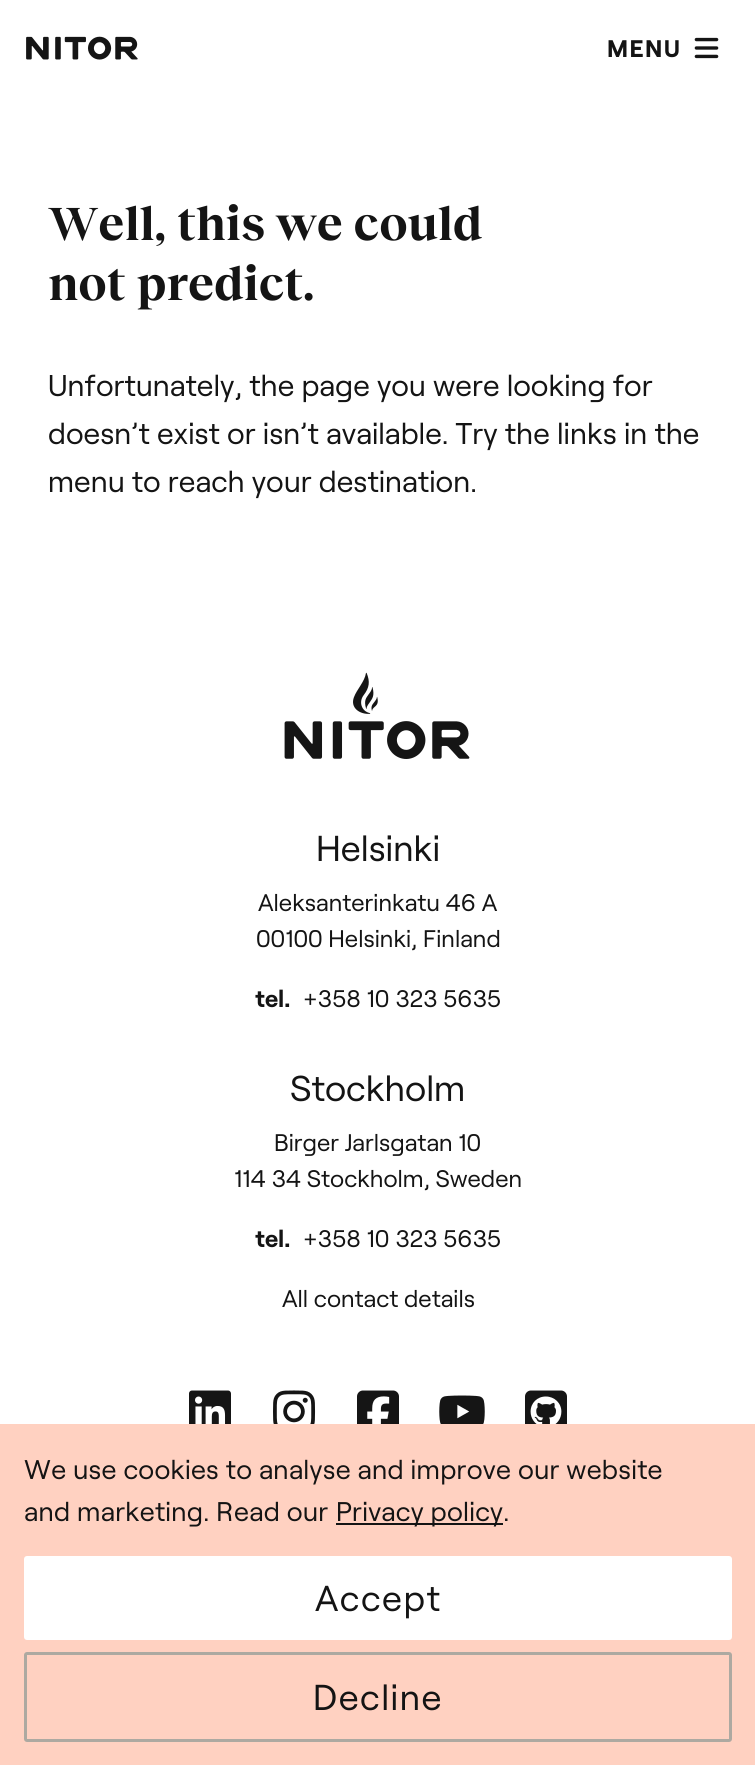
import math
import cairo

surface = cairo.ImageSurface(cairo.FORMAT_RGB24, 755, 1765)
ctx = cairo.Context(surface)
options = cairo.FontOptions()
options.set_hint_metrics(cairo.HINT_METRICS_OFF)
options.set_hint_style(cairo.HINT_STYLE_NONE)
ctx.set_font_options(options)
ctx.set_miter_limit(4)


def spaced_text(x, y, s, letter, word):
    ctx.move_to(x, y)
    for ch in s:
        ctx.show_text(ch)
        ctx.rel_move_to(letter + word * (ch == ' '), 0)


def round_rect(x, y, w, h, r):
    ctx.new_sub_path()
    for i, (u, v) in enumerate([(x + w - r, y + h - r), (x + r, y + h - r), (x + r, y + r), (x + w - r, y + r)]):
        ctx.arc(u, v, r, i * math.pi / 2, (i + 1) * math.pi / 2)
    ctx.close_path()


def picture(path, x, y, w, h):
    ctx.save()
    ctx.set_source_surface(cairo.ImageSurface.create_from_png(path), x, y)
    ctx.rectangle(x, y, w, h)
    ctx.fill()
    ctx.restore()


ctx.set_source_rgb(1, 1, 1)
ctx.paint()
picture("img1.png", 26, 36, 112, 24)
ctx.select_font_face("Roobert", cairo.FONT_SLANT_NORMAL, cairo.FONT_WEIGHT_BOLD)
ctx.set_font_size(24)
ctx.set_source_rgb(0.082, 0.082, 0.082)
spaced_text(607, 57, "MENU", 1.5, 0)
picture("img2.png", 694, 37, 25, 22)
ctx.select_font_face("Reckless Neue", cairo.FONT_SLANT_NORMAL, cairo.FONT_WEIGHT_BOLD)
ctx.set_font_size(48)
ctx.move_to(48, 240)
ctx.show_text("Well, this we could")
ctx.move_to(48, 300)
ctx.show_text("not predict.")
ctx.select_font_face("Roobert")
ctx.set_font_size(30)
ctx.move_to(48, 396)
ctx.show_text("Unfortunately, the page you were looking for")
ctx.move_to(48, 444)
ctx.show_text("doesn’t exist or isn’t available. Try the links in the")
ctx.move_to(48, 492)
ctx.show_text("menu to reach your destination.")
picture("img3.png", 284, 672, 186, 87)
ctx.set_font_size(36)
ctx.move_to(316, 861)
ctx.show_text("Helsinki")
ctx.set_font_size(24)
ctx.move_to(258, 911)
ctx.show_text("Aleksanterinkatu 46 A")
ctx.move_to(256, 947)
ctx.show_text("00100 Helsinki, Finland")
ctx.select_font_face("Roobert", cairo.FONT_SLANT_NORMAL, cairo.FONT_WEIGHT_BOLD)
ctx.move_to(255, 1007)
ctx.show_text("tel.")
ctx.select_font_face("Roobert")
ctx.move_to(303, 1007)
ctx.show_text("+358 10 323 5635")
ctx.set_font_size(36)
ctx.move_to(290, 1101)
ctx.show_text("Stockholm")
ctx.set_font_size(24)
ctx.move_to(274, 1151)
ctx.show_text("Birger Jarlsgatan 10")
ctx.move_to(234, 1187)
ctx.show_text("114 34 Stockholm, Sweden")
ctx.select_font_face("Roobert", cairo.FONT_SLANT_NORMAL, cairo.FONT_WEIGHT_BOLD)
ctx.move_to(255, 1247)
ctx.show_text("tel.")
ctx.select_font_face("Roobert")
ctx.move_to(303, 1247)
ctx.show_text("+358 10 323 5635")
ctx.move_to(282, 1307)
ctx.show_text("All contact details")
picture("img4.png", 189, 1390, 42, 34)
picture("img5.png", 273, 1390, 43, 34)
picture("img6.png", 357, 1390, 42, 34)
picture("img7.png", 439, 1395, 46, 29)
picture("img8.png", 525, 1390, 42, 34)
ctx.set_source_rgb(1, 0.82, 0.757)
ctx.rectangle(0, 1424, 755, 341)
ctx.fill()
ctx.set_font_size(27)
ctx.set_source_rgb(0.082, 0.082, 0.082)
spaced_text(24, 1479, "We use cookies to analyse and improve our website", 0.25, 0)
spaced_text(24, 1521, "and marketing. Read our", 0.25, 0)
ctx.rectangle(336, 1523, 167, 2)
ctx.fill()
spaced_text(336, 1521, "Privacy policy.", 0.25, 0)
ctx.set_source_rgb(1, 1, 1)
round_rect(24, 1556, 708, 84, 3)
ctx.fill()
ctx.set_font_size(36)
ctx.set_source_rgb(0.082, 0.082, 0.082)
spaced_text(315, 1611, "Accept", 1.5, 0)
round_rect(25.5, 1653.5, 705, 87, 1.5)
ctx.set_source_rgb(0.678, 0.663, 0.631)
ctx.set_line_width(3)
ctx.stroke()
ctx.set_source_rgb(0.082, 0.082, 0.082)
spaced_text(313, 1710, "Decline", 1.5, 0)
surface.write_to_png("page.png")
